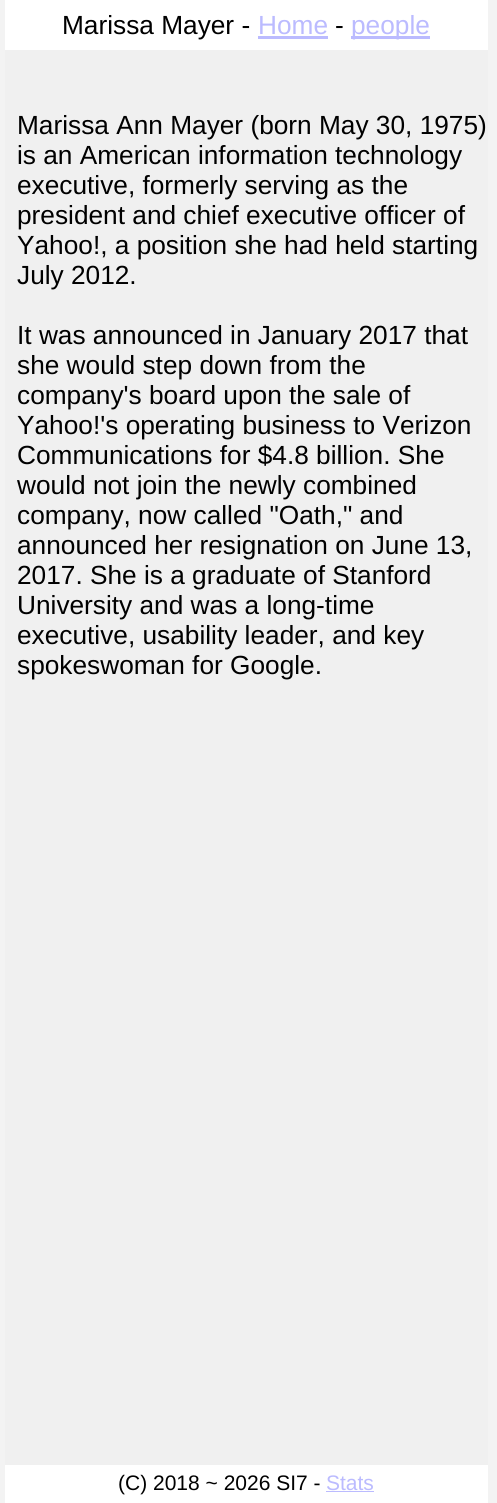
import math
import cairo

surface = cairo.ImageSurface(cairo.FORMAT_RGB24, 497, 1503)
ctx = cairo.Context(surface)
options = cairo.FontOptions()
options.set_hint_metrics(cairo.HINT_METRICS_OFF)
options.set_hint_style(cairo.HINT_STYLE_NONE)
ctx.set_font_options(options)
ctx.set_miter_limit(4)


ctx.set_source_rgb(0.953, 0.953, 0.953)
ctx.paint()
ctx.set_source_rgb(0.941, 0.941, 0.941)
ctx.rectangle(5, 50, 483, 1415)
ctx.fill()
ctx.set_source_rgb(1, 1, 1)
ctx.rectangle(5, 0, 483, 50)
ctx.fill()
ctx.select_font_face("Liberation Sans")
ctx.set_font_size(26.25)
ctx.set_source_rgb(0, 0, 0)
ctx.move_to(62, 34)
ctx.show_text("Marissa Mayer -")
ctx.set_source_rgb(0.733, 0.733, 1)
ctx.move_to(258, 34)
ctx.show_text("Home")
ctx.rectangle(258, 36, 70, 3)
ctx.fill()
ctx.set_source_rgb(0, 0, 0)
ctx.move_to(335, 34)
ctx.show_text("-")
ctx.set_source_rgb(0.733, 0.733, 1)
ctx.rectangle(351, 36, 79, 3)
ctx.fill()
ctx.move_to(351, 34)
ctx.show_text("people")
ctx.set_source_rgb(0, 0, 0)
ctx.move_to(17, 134)
ctx.show_text("Marissa Ann Mayer (born May 30, 1975)")
ctx.move_to(17, 164)
ctx.show_text("is an American information technology")
ctx.move_to(17, 194)
ctx.show_text("executive, formerly serving as the")
ctx.move_to(17, 224)
ctx.show_text("president and chief executive officer of")
ctx.move_to(17, 254)
ctx.show_text("Yahoo!, a position she had held starting")
ctx.move_to(17, 284)
ctx.show_text("July 2012.")
ctx.move_to(17, 344)
ctx.show_text("It was announced in January 2017 that")
ctx.move_to(17, 374)
ctx.show_text("she would step down from the")
ctx.move_to(17, 404)
ctx.show_text("company's board upon the sale of")
ctx.move_to(17, 434)
ctx.show_text("Yahoo!'s operating business to Verizon")
ctx.move_to(17, 464)
ctx.show_text("Communications for $4.8 billion. She")
ctx.move_to(17, 494)
ctx.show_text("would not join the newly combined")
ctx.move_to(17, 524)
ctx.show_text("company, now called \"Oath,\" and")
ctx.move_to(17, 554)
ctx.show_text("announced her resignation on June 13,")
ctx.move_to(17, 584)
ctx.show_text("2017. She is a graduate of Stanford")
ctx.move_to(17, 614)
ctx.show_text("University and was a long-time")
ctx.move_to(17, 644)
ctx.show_text("executive, usability leader, and key")
ctx.move_to(17, 674)
ctx.show_text("spokeswoman for Google.")
ctx.set_source_rgb(1, 1, 1)
ctx.rectangle(5, 1465, 483, 38)
ctx.fill()
ctx.set_font_size(21)
ctx.set_source_rgb(0, 0, 0)
ctx.move_to(118, 1490)
ctx.show_text("(C) 2018 ~ 2026 SI7 -")
ctx.set_source_rgb(0.733, 0.733, 1)
ctx.move_to(326, 1490)
ctx.show_text("Stats")
ctx.rectangle(326, 1491, 48, 1)
ctx.fill()
surface.write_to_png("page.png")
